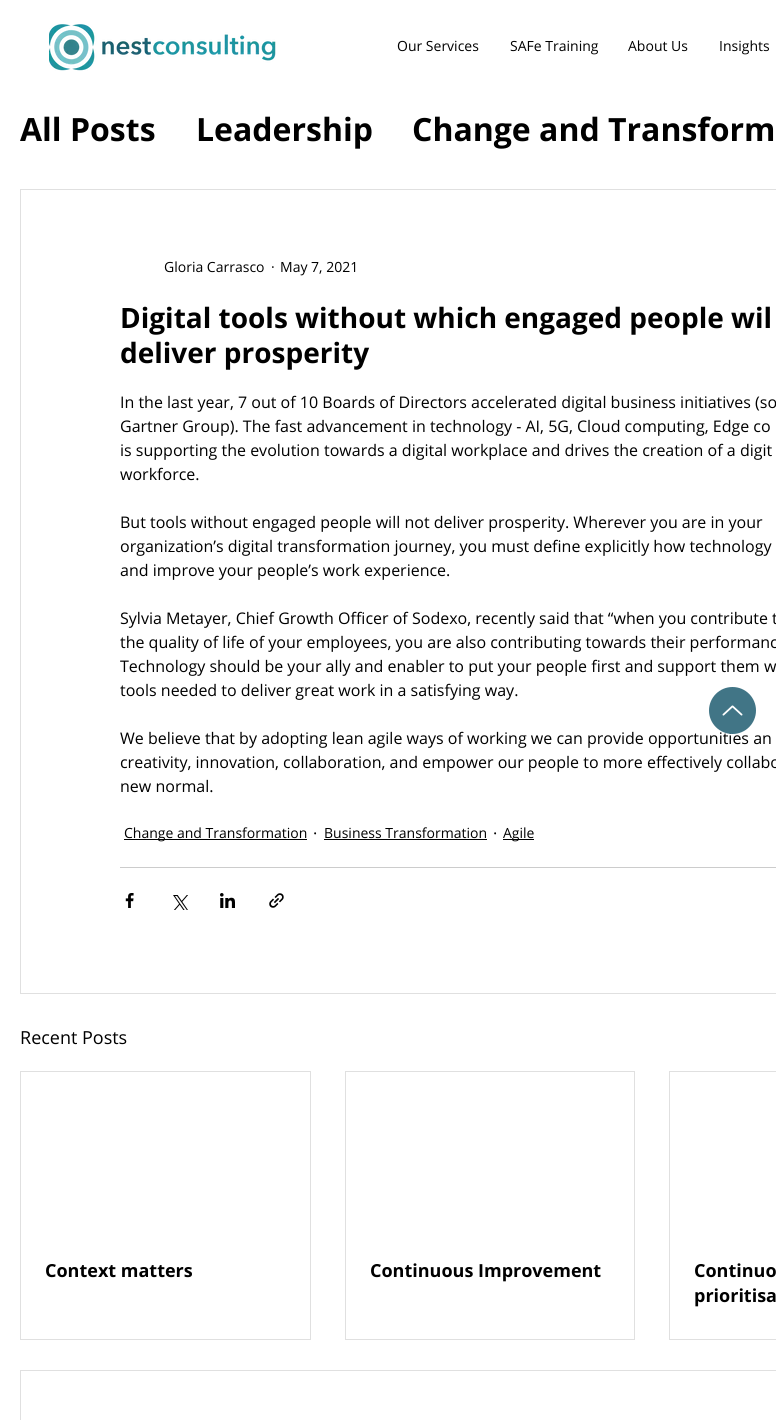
import math
import cairo

surface = cairo.ImageSurface(cairo.FORMAT_RGB24, 776, 1420)
ctx = cairo.Context(surface)
options = cairo.FontOptions()
options.set_hint_metrics(cairo.HINT_METRICS_OFF)
options.set_hint_style(cairo.HINT_STYLE_NONE)
ctx.set_font_options(options)
ctx.set_miter_limit(4)


def picture(path, x, y, w, h):
    ctx.save()
    ctx.set_source_surface(cairo.ImageSurface.create_from_png(path), x, y)
    ctx.rectangle(x, y, w, h)
    ctx.fill()
    ctx.restore()


ctx.set_source_rgb(1, 1, 1)
ctx.paint()
picture("img1.png", 49, 24, 227, 47)
ctx.select_font_face("Open Sans")
ctx.set_font_size(14)
ctx.set_source_rgb(0, 0, 0)
ctx.move_to(397, 51)
ctx.show_text("Our Services")
ctx.move_to(510, 51)
ctx.show_text("SAFe Training")
ctx.move_to(628, 51)
ctx.show_text("About Us")
ctx.move_to(719, 51)
ctx.show_text("Insights")
ctx.select_font_face("Open Sans", cairo.FONT_SLANT_NORMAL, cairo.FONT_WEIGHT_BOLD)
ctx.set_font_size(32)
ctx.move_to(20, 141)
ctx.show_text("All Posts")
ctx.move_to(196, 141)
ctx.show_text("Leadership")
ctx.move_to(412, 141)
ctx.show_text("Change and Transform")
ctx.rectangle(20.5, 189.5, 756, 804)
ctx.set_source_rgb(0.878, 0.878, 0.878)
ctx.set_line_width(1)
ctx.stroke()
ctx.select_font_face("Open Sans")
ctx.set_font_size(14)
ctx.set_source_rgb(0, 0, 0)
ctx.move_to(164, 272)
ctx.show_text("Gloria Carrasco")
ctx.move_to(271, 272)
ctx.show_text("·")
ctx.move_to(280, 272)
ctx.show_text("May 7, 2021")
ctx.select_font_face("Open Sans", cairo.FONT_SLANT_NORMAL, cairo.FONT_WEIGHT_BOLD)
ctx.set_font_size(28)
ctx.move_to(120, 328)
ctx.show_text("Digital tools without which engaged people wil")
ctx.move_to(120, 363)
ctx.show_text("deliver prosperity")
ctx.select_font_face("Open Sans")
ctx.set_font_size(16)
ctx.move_to(120, 408)
ctx.show_text("In the last year, 7 out of 10 Boards of Directors accelerated digital business initiatives (so")
ctx.move_to(120, 432)
ctx.show_text("Gartner Group). The fast advancement in technology - AI, 5G, Cloud computing, Edge co")
ctx.move_to(120, 456)
ctx.show_text("is supporting the evolution towards a digital workplace and drives the creation of a digit")
ctx.move_to(120, 480)
ctx.show_text("workforce.")
ctx.move_to(120, 528)
ctx.show_text("But tools without engaged people will not deliver prosperity. Wherever you are in your")
ctx.move_to(120, 552)
ctx.show_text("organization’s digital transformation journey, you must define explicitly how technology")
ctx.move_to(120, 576)
ctx.show_text("and improve your people’s work experience.")
ctx.move_to(120, 624)
ctx.show_text("Sylvia Metayer, Chief Growth Officer of Sodexo, recently said that “when you contribute t")
ctx.move_to(120, 648)
ctx.show_text("the quality of life of your employees, you are also contributing towards their performanc")
ctx.move_to(120, 672)
ctx.show_text("Technology should be your ally and enabler to put your people first and support them w")
ctx.move_to(120, 696)
ctx.show_text("tools needed to deliver great work in a satisfying way.")
ctx.move_to(120, 744)
ctx.show_text("We believe that by adopting lean agile ways of working we can provide opportunities an")
ctx.move_to(120, 768)
ctx.show_text("creativity, innovation, collaboration, and empower our people to more effectively collabo")
ctx.move_to(120, 792)
ctx.show_text("new normal.")
ctx.rectangle(124, 839, 183, 1)
ctx.fill()
ctx.set_font_size(14)
ctx.move_to(124, 838)
ctx.show_text("Change and Transformation")
ctx.set_font_size(16)
ctx.move_to(313, 839)
ctx.show_text("·")
ctx.set_font_size(14)
ctx.move_to(324, 838)
ctx.show_text("Business Transformation")
ctx.rectangle(324, 839, 163, 1)
ctx.fill()
ctx.set_font_size(16)
ctx.move_to(493, 839)
ctx.show_text("·")
ctx.rectangle(503, 839, 31, 1)
ctx.fill()
ctx.set_font_size(14)
ctx.move_to(503, 838)
ctx.show_text("Agile")
ctx.set_source_rgb(0.8, 0.8, 0.8)
ctx.rectangle(120, 867, 656, 1)
ctx.fill()
picture("img2.png", 125, 893, 9, 15)
picture("img3.png", 173, 895, 15, 15)
picture("img4.png", 220, 893, 15, 15)
picture("img5.png", 269, 893, 15, 15)
ctx.set_font_size(18)
ctx.set_source_rgb(0, 0, 0)
ctx.move_to(20, 1044)
ctx.show_text("Recent Posts")
ctx.rectangle(20.5, 1071.5, 290, 268)
ctx.set_source_rgb(0.878, 0.878, 0.878)
ctx.stroke()
ctx.select_font_face("Open Sans", cairo.FONT_SLANT_NORMAL, cairo.FONT_WEIGHT_BOLD)
ctx.set_source_rgb(0, 0, 0)
ctx.move_to(45, 1277)
ctx.show_text("Context matters")
ctx.rectangle(345.5, 1071.5, 289, 268)
ctx.set_source_rgb(0.878, 0.878, 0.878)
ctx.stroke()
ctx.set_source_rgb(0, 0, 0)
ctx.move_to(370, 1277)
ctx.show_text("Continuous Improvement")
ctx.rectangle(669.5, 1071.5, 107, 268)
ctx.set_source_rgb(0.878, 0.878, 0.878)
ctx.stroke()
ctx.set_source_rgb(0, 0, 0)
ctx.move_to(694, 1277)
ctx.show_text("Continuo")
ctx.move_to(694, 1302)
ctx.show_text("prioritisa")
ctx.rectangle(20.5, 1370.5, 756, 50)
ctx.set_source_rgb(0.878, 0.878, 0.878)
ctx.stroke()
ctx.set_source_rgb(0.255, 0.459, 0.525)
ctx.arc(732.5, 710.5, 23.5, 0, 2 * math.pi)
ctx.fill()
picture("img6.png", 722, 705, 21, 11)
surface.write_to_png("page.png")
